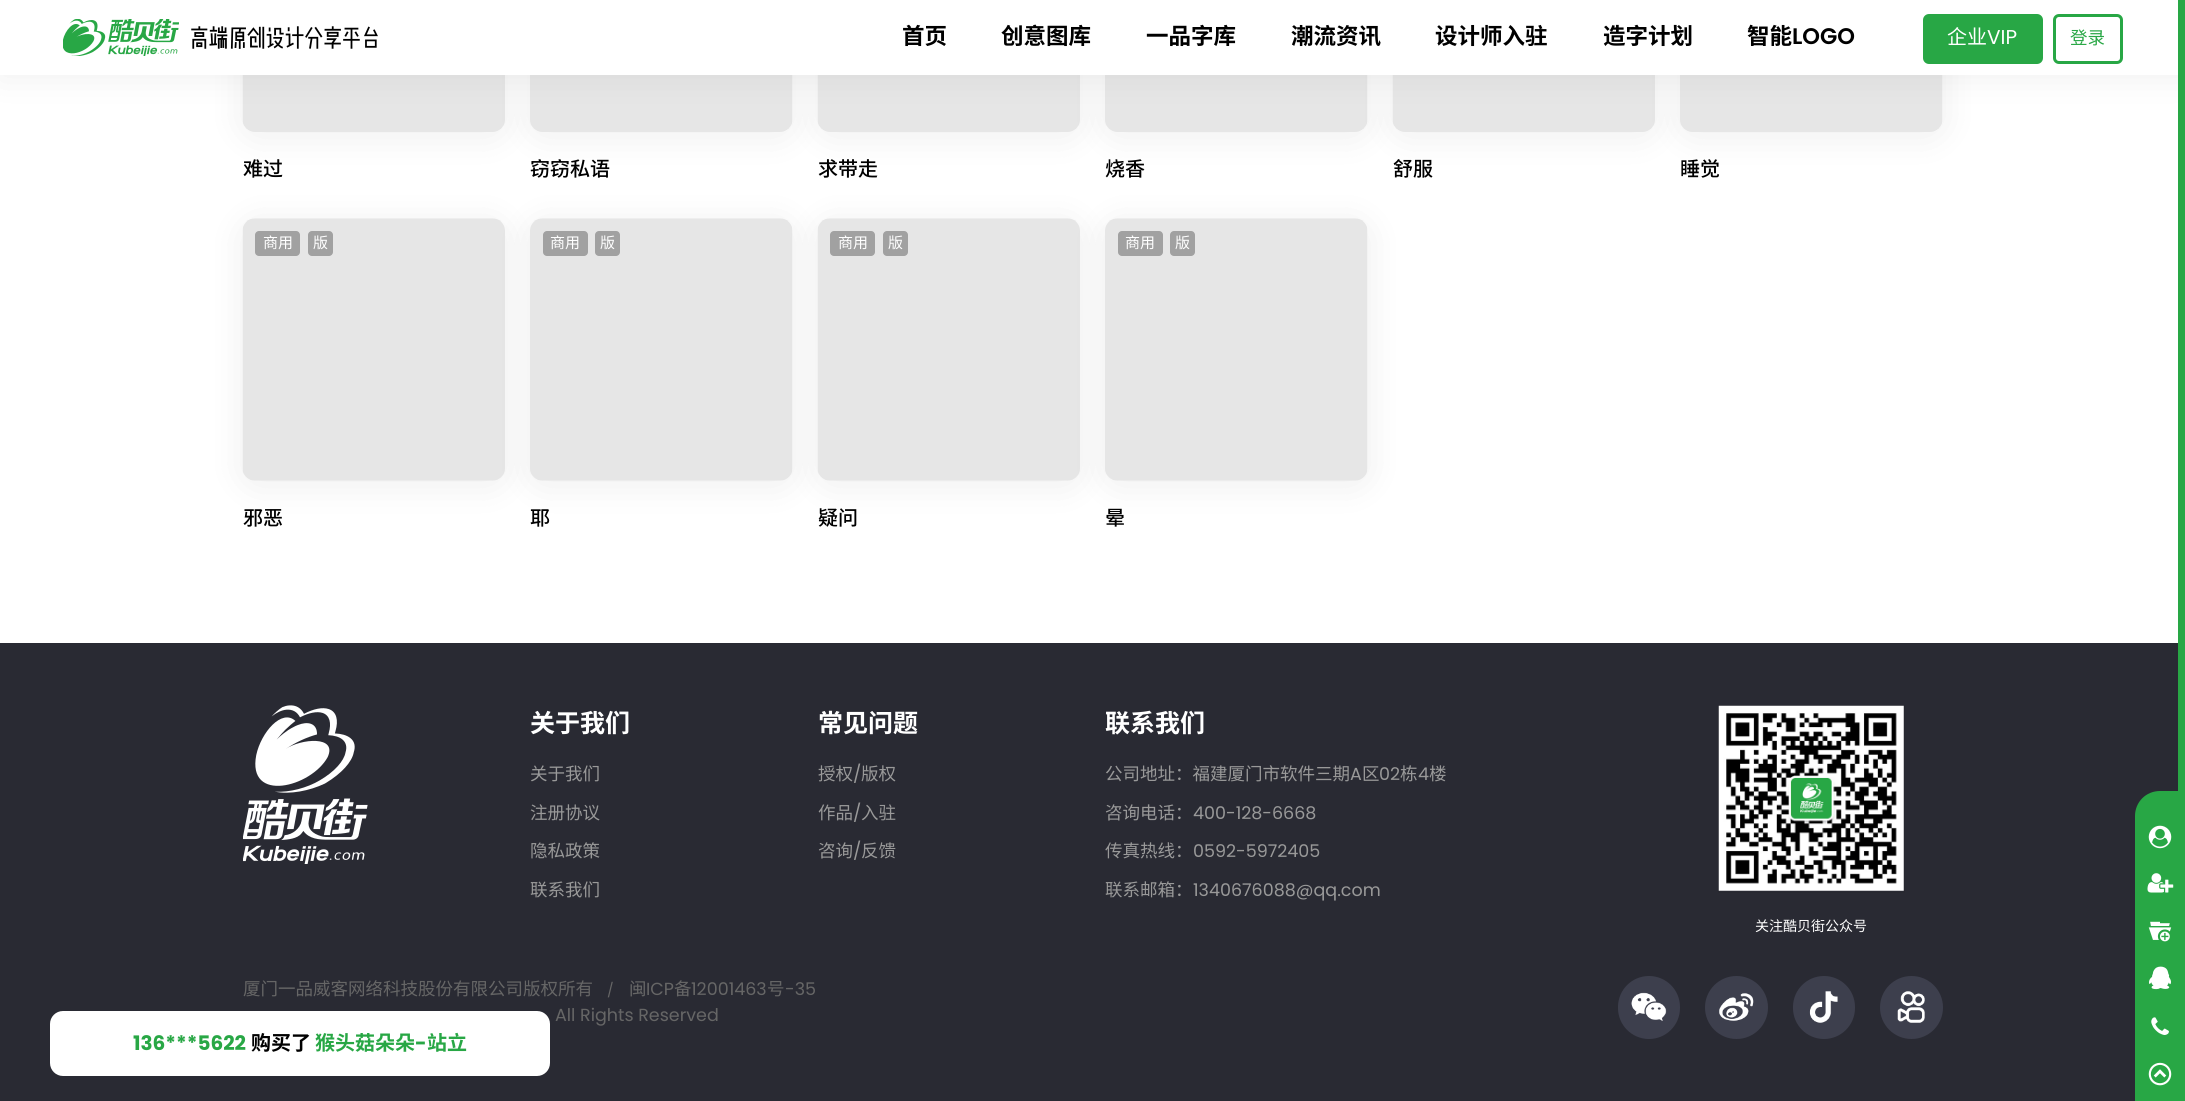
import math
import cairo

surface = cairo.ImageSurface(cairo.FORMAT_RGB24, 2185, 1101)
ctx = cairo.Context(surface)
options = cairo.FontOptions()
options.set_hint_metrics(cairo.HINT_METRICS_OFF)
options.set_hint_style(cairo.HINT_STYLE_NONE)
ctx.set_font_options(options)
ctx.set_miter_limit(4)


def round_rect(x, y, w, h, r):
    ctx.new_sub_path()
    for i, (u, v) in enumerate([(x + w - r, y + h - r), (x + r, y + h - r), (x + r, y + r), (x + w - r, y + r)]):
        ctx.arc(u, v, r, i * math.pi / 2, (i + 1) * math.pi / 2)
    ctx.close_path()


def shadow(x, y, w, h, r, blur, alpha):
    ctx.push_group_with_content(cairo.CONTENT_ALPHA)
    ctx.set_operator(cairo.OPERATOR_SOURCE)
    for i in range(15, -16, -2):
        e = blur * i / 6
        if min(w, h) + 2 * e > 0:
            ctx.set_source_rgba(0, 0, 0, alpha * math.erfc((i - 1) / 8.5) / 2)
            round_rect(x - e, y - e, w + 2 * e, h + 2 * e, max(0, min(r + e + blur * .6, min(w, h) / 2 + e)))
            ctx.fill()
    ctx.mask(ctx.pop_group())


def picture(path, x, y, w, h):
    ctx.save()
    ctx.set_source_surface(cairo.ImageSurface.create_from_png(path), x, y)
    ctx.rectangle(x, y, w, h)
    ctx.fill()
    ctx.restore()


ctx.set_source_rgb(1, 1, 1)
ctx.paint()
ctx.set_source_rgb(0, 0, 0)
shadow(243, -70, 262, 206, 13, 19, 0.07)
picture("img9.png", 242, 75, 263, 57)
shadow(530, -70, 263, 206, 13, 19, 0.07)
picture("img10.png", 530, 75, 263, 57)
shadow(818, -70, 262, 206, 13, 19, 0.07)
picture("img11.png", 817, 75, 263, 57)
shadow(1105, -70, 263, 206, 13, 19, 0.07)
picture("img10.png", 1105, 75, 263, 57)
shadow(1393, -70, 262, 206, 13, 19, 0.07)
picture("img11.png", 1392, 75, 263, 57)
shadow(1680, -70, 263, 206, 13, 19, 0.07)
picture("img10.png", 1680, 75, 263, 57)
shadow(0, 0, 2185, 75, 0, 19, 0.07)
ctx.set_source_rgb(1, 1, 1)
ctx.rectangle(0, 0, 2178, 75)
ctx.fill()
picture("img1.png", 63, 19, 116, 37)
picture("img2.png", 191, 26, 187, 23)
ctx.select_font_face("Noto Sans CJK SC", cairo.FONT_SLANT_NORMAL, cairo.FONT_WEIGHT_BOLD)
ctx.set_font_size(22.5)
ctx.set_source_rgb(0, 0, 0)
ctx.move_to(902, 44)
ctx.show_text("首页")
ctx.move_to(1001, 44)
ctx.show_text("创意图库")
ctx.move_to(1146, 44)
ctx.show_text("一品字库")
ctx.move_to(1291, 44)
ctx.show_text("潮流资讯")
ctx.move_to(1435, 44)
ctx.show_text("设计师入驻")
ctx.move_to(1603, 44)
ctx.show_text("造字计划")
ctx.move_to(1747, 44)
ctx.show_text("智能")
ctx.select_font_face("Poppins SemiBold")
ctx.move_to(1792, 44)
ctx.show_text("LOGO")
ctx.set_source_rgb(0.157, 0.655, 0.271)
round_rect(1923, 14, 120, 50, 6)
ctx.fill()
ctx.select_font_face("Noto Sans CJK SC")
ctx.set_font_size(20)
ctx.set_source_rgb(1, 1, 1)
ctx.move_to(1947, 44)
ctx.show_text("企业")
ctx.select_font_face("Poppins")
ctx.move_to(1987, 44)
ctx.show_text("VIP")
round_rect(2054.5, 15.5, 67, 47, 4.5)
ctx.set_source_rgb(0.157, 0.655, 0.271)
ctx.set_line_width(3)
ctx.stroke()
ctx.select_font_face("Noto Sans CJK SC")
ctx.set_font_size(17.5)
ctx.move_to(2070, 44)
ctx.show_text("登录")
ctx.rectangle(2178, 0, 7, 791)
ctx.fill()
ctx.set_source_rgb(0.161, 0.165, 0.2)
ctx.rectangle(0, 643, 2178, 458)
ctx.fill()
ctx.set_source_rgb(0.157, 0.655, 0.271)
ctx.new_path()
ctx.move_to(2160, 791)
ctx.line_to(2185, 791)
ctx.line_to(2185, 816)
ctx.line_to(2135, 816)
ctx.curve_to(2135, 802, 2146, 791, 2160, 791)
ctx.close_path()
ctx.fill()
ctx.rectangle(2135, 816, 50, 285)
ctx.fill()
picture("img3.png", 2148, 825, 24, 24)
picture("img4.png", 2147, 873, 27, 20)
picture("img5.png", 2148, 921, 24, 21)
picture("img6.png", 2149, 966, 22, 24)
picture("img7.png", 2151, 1017, 18, 18)
picture("img8.png", 2148, 1062, 24, 24)
ctx.select_font_face("Noto Sans CJK SC Medium")
ctx.set_font_size(20)
ctx.set_source_rgb(0, 0, 0)
ctx.move_to(243, 176)
ctx.show_text("难过")
ctx.move_to(530, 176)
ctx.show_text("窃窃私语")
ctx.move_to(818, 176)
ctx.show_text("求带走")
ctx.move_to(1105, 176)
ctx.show_text("烧香")
ctx.move_to(1393, 176)
ctx.show_text("舒服")
ctx.move_to(1680, 176)
ctx.show_text("睡觉")
ctx.set_source_rgb(0, 0, 0)
shadow(243, 223, 262, 262, 13, 19, 0.07)
picture("img12.png", 242, 218, 263, 263)
ctx.set_source_rgb(0.631, 0.631, 0.631)
round_rect(255, 231, 45, 25, 4)
ctx.fill()
ctx.select_font_face("Noto Sans CJK SC")
ctx.set_font_size(15)
ctx.set_source_rgb(1, 1, 1)
ctx.move_to(263, 248)
ctx.show_text("商用")
ctx.set_source_rgb(0.631, 0.631, 0.631)
round_rect(308, 231, 25, 25, 4)
ctx.fill()
ctx.set_source_rgb(1, 1, 1)
ctx.move_to(313, 248)
ctx.show_text("版")
ctx.select_font_face("Noto Sans CJK SC Medium")
ctx.set_font_size(20)
ctx.set_source_rgb(0, 0, 0)
ctx.move_to(243, 525)
ctx.show_text("邪恶")
ctx.set_source_rgb(0, 0, 0)
shadow(530, 223, 263, 262, 13, 19, 0.07)
picture("img13.png", 530, 218, 263, 263)
ctx.set_source_rgb(0.631, 0.631, 0.631)
round_rect(543, 231, 45, 25, 4)
ctx.fill()
ctx.select_font_face("Noto Sans CJK SC")
ctx.set_font_size(15)
ctx.set_source_rgb(1, 1, 1)
ctx.move_to(550, 248)
ctx.show_text("商用")
ctx.set_source_rgb(0.631, 0.631, 0.631)
round_rect(595, 231, 25, 25, 4)
ctx.fill()
ctx.set_source_rgb(1, 1, 1)
ctx.move_to(600, 248)
ctx.show_text("版")
ctx.select_font_face("Noto Sans CJK SC Medium")
ctx.set_font_size(20)
ctx.set_source_rgb(0, 0, 0)
ctx.move_to(530, 525)
ctx.show_text("耶")
ctx.set_source_rgb(0, 0, 0)
shadow(818, 223, 262, 262, 13, 19, 0.07)
picture("img14.png", 817, 218, 263, 263)
ctx.set_source_rgb(0.631, 0.631, 0.631)
round_rect(830, 231, 45, 25, 4)
ctx.fill()
ctx.select_font_face("Noto Sans CJK SC")
ctx.set_font_size(15)
ctx.set_source_rgb(1, 1, 1)
ctx.move_to(838, 248)
ctx.show_text("商用")
ctx.set_source_rgb(0.631, 0.631, 0.631)
round_rect(883, 231, 25, 25, 4)
ctx.fill()
ctx.set_source_rgb(1, 1, 1)
ctx.move_to(888, 248)
ctx.show_text("版")
ctx.select_font_face("Noto Sans CJK SC Medium")
ctx.set_font_size(20)
ctx.set_source_rgb(0, 0, 0)
ctx.move_to(818, 525)
ctx.show_text("疑问")
ctx.set_source_rgb(0, 0, 0)
shadow(1105, 223, 263, 262, 13, 19, 0.07)
picture("img13.png", 1105, 218, 263, 263)
ctx.set_source_rgb(0.631, 0.631, 0.631)
round_rect(1118, 231, 45, 25, 4)
ctx.fill()
ctx.select_font_face("Noto Sans CJK SC")
ctx.set_font_size(15)
ctx.set_source_rgb(1, 1, 1)
ctx.move_to(1125, 248)
ctx.show_text("商用")
ctx.set_source_rgb(0.631, 0.631, 0.631)
round_rect(1170, 231, 25, 25, 4)
ctx.fill()
ctx.set_source_rgb(1, 1, 1)
ctx.move_to(1175, 248)
ctx.show_text("版")
ctx.select_font_face("Noto Sans CJK SC Medium")
ctx.set_font_size(20)
ctx.set_source_rgb(0, 0, 0)
ctx.move_to(1105, 525)
ctx.show_text("晕")
picture("img15.png", 243, 705, 125, 159)
ctx.select_font_face("Noto Sans CJK SC", cairo.FONT_SLANT_NORMAL, cairo.FONT_WEIGHT_BOLD)
ctx.set_font_size(25)
ctx.set_source_rgb(1, 1, 1)
ctx.move_to(530, 732)
ctx.show_text("关于我们")
ctx.select_font_face("Noto Sans CJK SC")
ctx.set_font_size(17.5)
ctx.set_source_rgb(0.6, 0.6, 0.6)
ctx.move_to(530, 780)
ctx.show_text("关于我们")
ctx.move_to(530, 819)
ctx.show_text("注册协议")
ctx.move_to(530, 857)
ctx.show_text("隐私政策")
ctx.move_to(530, 896)
ctx.show_text("联系我们")
ctx.select_font_face("Noto Sans CJK SC", cairo.FONT_SLANT_NORMAL, cairo.FONT_WEIGHT_BOLD)
ctx.set_font_size(25)
ctx.set_source_rgb(1, 1, 1)
ctx.move_to(818, 732)
ctx.show_text("常见问题")
ctx.select_font_face("Noto Sans CJK SC")
ctx.set_font_size(17.5)
ctx.set_source_rgb(0.6, 0.6, 0.6)
ctx.move_to(818, 780)
ctx.show_text("授权")
ctx.select_font_face("Poppins")
ctx.move_to(853, 780)
ctx.show_text("/")
ctx.select_font_face("Noto Sans CJK SC")
ctx.move_to(861, 780)
ctx.show_text("版权")
ctx.move_to(818, 819)
ctx.show_text("作品")
ctx.select_font_face("Poppins")
ctx.move_to(853, 819)
ctx.show_text("/")
ctx.select_font_face("Noto Sans CJK SC")
ctx.move_to(861, 819)
ctx.show_text("入驻")
ctx.move_to(818, 857)
ctx.show_text("咨询")
ctx.select_font_face("Poppins")
ctx.move_to(853, 857)
ctx.show_text("/")
ctx.select_font_face("Noto Sans CJK SC")
ctx.move_to(861, 857)
ctx.show_text("反馈")
ctx.select_font_face("Noto Sans CJK SC", cairo.FONT_SLANT_NORMAL, cairo.FONT_WEIGHT_BOLD)
ctx.set_font_size(25)
ctx.set_source_rgb(1, 1, 1)
ctx.move_to(1105, 732)
ctx.show_text("联系我们")
ctx.select_font_face("Noto Sans CJK SC")
ctx.set_font_size(17.5)
ctx.set_source_rgb(0.6, 0.6, 0.6)
ctx.move_to(1105, 780)
ctx.show_text("公司地址：福建厦门市软件三期")
ctx.select_font_face("Poppins")
ctx.move_to(1350, 780)
ctx.show_text("A")
ctx.select_font_face("Noto Sans CJK SC")
ctx.move_to(1362, 780)
ctx.show_text("区")
ctx.select_font_face("Poppins")
ctx.move_to(1379, 780)
ctx.show_text("02")
ctx.select_font_face("Noto Sans CJK SC")
ctx.move_to(1400, 780)
ctx.show_text("栋")
ctx.select_font_face("Poppins")
ctx.move_to(1418, 780)
ctx.show_text("4")
ctx.select_font_face("Noto Sans CJK SC")
ctx.move_to(1429, 780)
ctx.show_text("楼")
ctx.move_to(1105, 819)
ctx.show_text("咨询电话：")
ctx.select_font_face("Poppins")
ctx.move_to(1193, 819)
ctx.show_text("400-128-6668")
ctx.select_font_face("Noto Sans CJK SC")
ctx.move_to(1105, 857)
ctx.show_text("传真热线：")
ctx.select_font_face("Poppins")
ctx.move_to(1193, 857)
ctx.show_text("0592-5972405")
ctx.select_font_face("Noto Sans CJK SC")
ctx.move_to(1105, 896)
ctx.show_text("联系邮箱：")
ctx.select_font_face("Poppins")
ctx.move_to(1193, 896)
ctx.show_text("1340676088@qq.com")
ctx.rectangle(1718.5, 705.5, 186, 187)
ctx.set_source_rgb(0.153, 0.157, 0.188)
ctx.set_line_width(1)
ctx.stroke()
picture("img16.png", 1718, 705, 186, 186)
ctx.select_font_face("Noto Sans CJK SC")
ctx.set_font_size(14)
ctx.set_source_rgb(1, 1, 1)
ctx.move_to(1755, 931)
ctx.show_text("关注酷贝街公众号")
ctx.set_font_size(17.5)
ctx.set_source_rgb(0.4, 0.4, 0.4)
ctx.move_to(243, 995)
ctx.show_text("厦门一品威客网络科技股份有限公司版权所有")
ctx.select_font_face("Poppins")
ctx.set_font_size(14)
ctx.move_to(607, 995)
ctx.show_text("/")
ctx.select_font_face("Noto Sans CJK SC")
ctx.set_font_size(17.5)
ctx.move_to(629, 995)
ctx.show_text("闽")
ctx.select_font_face("Poppins")
ctx.move_to(646, 995)
ctx.show_text("ICP")
ctx.select_font_face("Noto Sans CJK SC")
ctx.move_to(674, 995)
ctx.show_text("备")
ctx.select_font_face("Poppins")
ctx.move_to(691, 995)
ctx.show_text("12001463")
ctx.select_font_face("Noto Sans CJK SC")
ctx.move_to(767, 995)
ctx.show_text("号")
ctx.select_font_face("Poppins")
ctx.move_to(785, 995)
ctx.show_text("-35")
ctx.move_to(555, 1021)
ctx.show_text("All Rights Reserved")
ctx.set_source_rgb(0.239, 0.247, 0.302)
round_rect(1618, 976, 62, 63, 31)
ctx.fill()
picture("img17.png", 1631, 992, 36, 29)
ctx.arc(1736.5, 1007.5, 31.5, 0, 2 * math.pi)
ctx.fill()
picture("img18.png", 1719, 993, 35, 28)
round_rect(1793, 976, 62, 63, 31)
ctx.fill()
picture("img19.png", 1809, 991, 29, 32)
ctx.arc(1911.5, 1007.5, 31.5, 0, 2 * math.pi)
ctx.fill()
picture("img20.png", 1897, 991, 28, 32)
ctx.set_source_rgb(1, 1, 1)
round_rect(50, 1011, 500, 65, 13)
ctx.fill()
ctx.select_font_face("Poppins", cairo.FONT_SLANT_NORMAL, cairo.FONT_WEIGHT_BOLD)
ctx.set_font_size(20)
ctx.set_source_rgb(0.157, 0.655, 0.271)
ctx.move_to(133, 1050)
ctx.show_text("136***5622")
ctx.select_font_face("Noto Sans CJK SC", cairo.FONT_SLANT_NORMAL, cairo.FONT_WEIGHT_BOLD)
ctx.set_source_rgb(0, 0, 0)
ctx.move_to(251, 1050)
ctx.show_text("购买了")
ctx.set_source_rgb(0.157, 0.655, 0.271)
ctx.move_to(315, 1050)
ctx.show_text("猴头菇朵朵")
ctx.select_font_face("Poppins", cairo.FONT_SLANT_NORMAL, cairo.FONT_WEIGHT_BOLD)
ctx.move_to(415, 1050)
ctx.show_text("-")
ctx.select_font_face("Noto Sans CJK SC", cairo.FONT_SLANT_NORMAL, cairo.FONT_WEIGHT_BOLD)
ctx.move_to(427, 1050)
ctx.show_text("站立")
surface.write_to_png("page.png")
